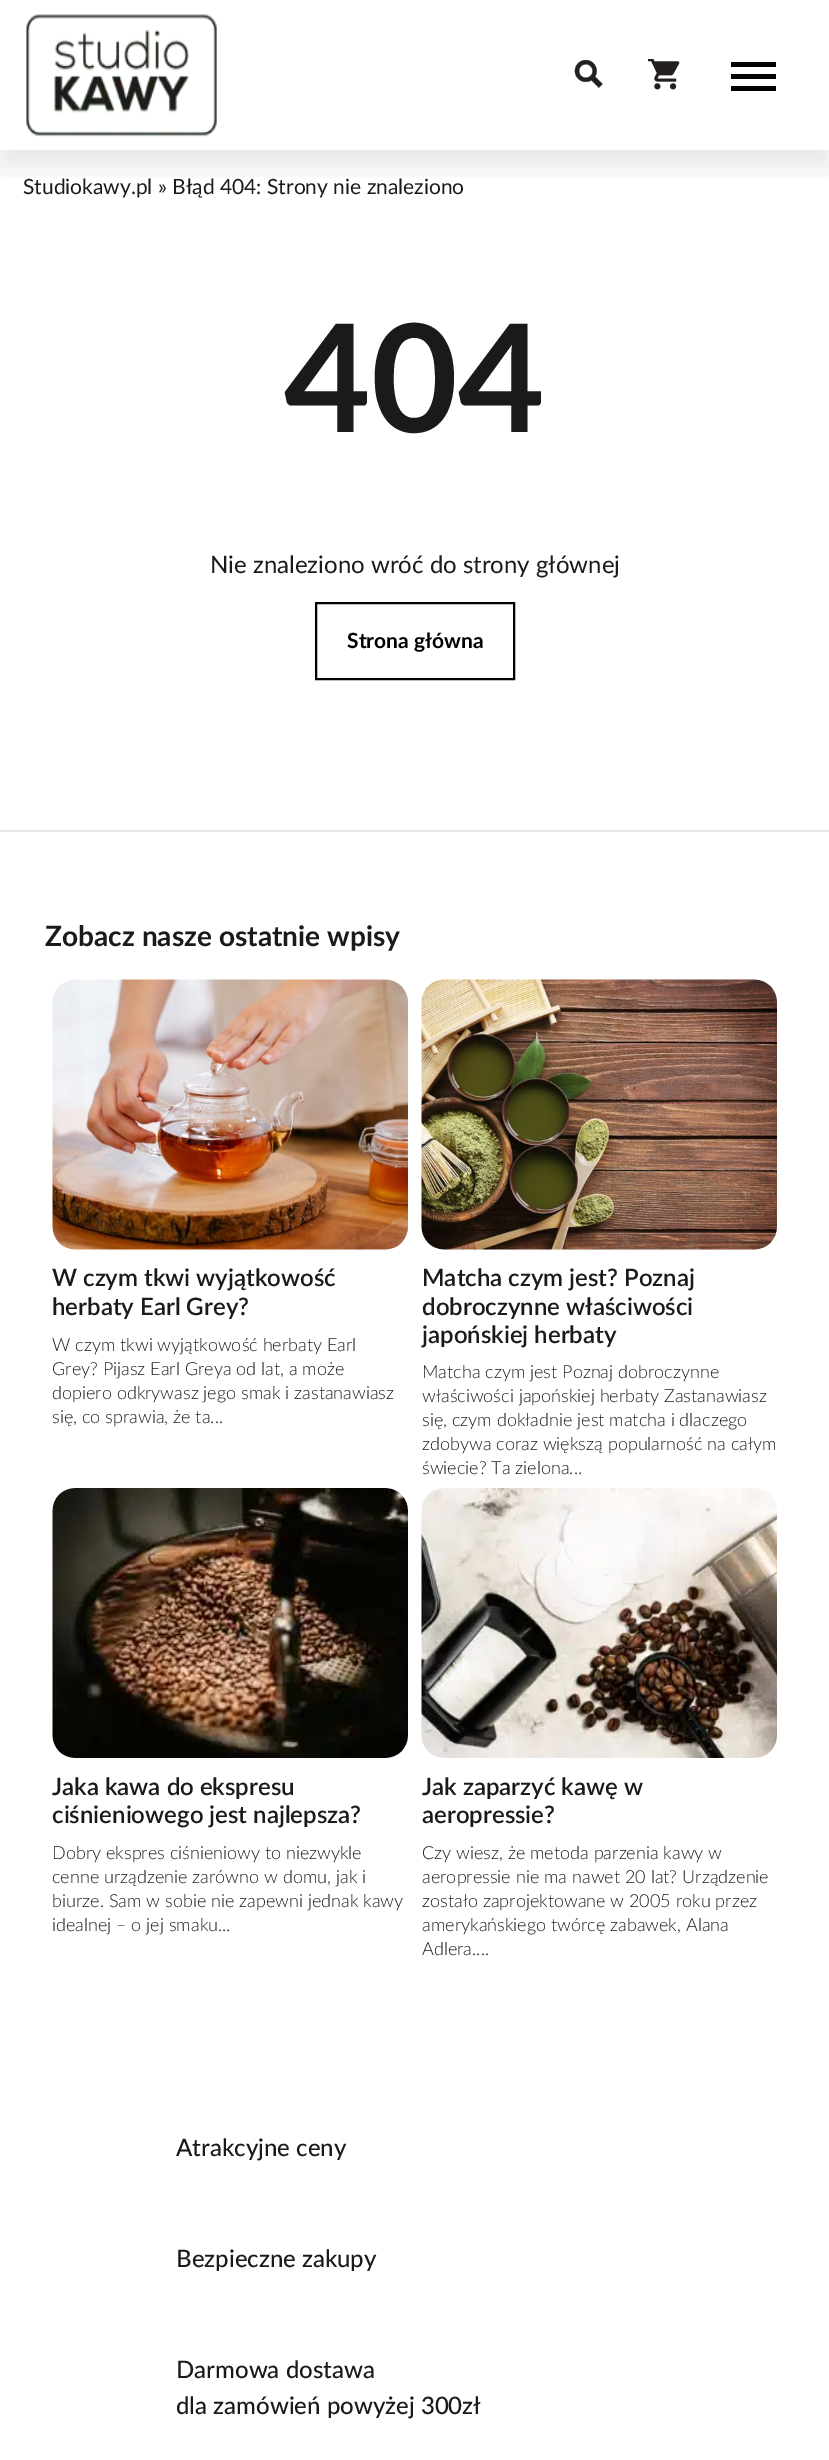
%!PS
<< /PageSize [829 2460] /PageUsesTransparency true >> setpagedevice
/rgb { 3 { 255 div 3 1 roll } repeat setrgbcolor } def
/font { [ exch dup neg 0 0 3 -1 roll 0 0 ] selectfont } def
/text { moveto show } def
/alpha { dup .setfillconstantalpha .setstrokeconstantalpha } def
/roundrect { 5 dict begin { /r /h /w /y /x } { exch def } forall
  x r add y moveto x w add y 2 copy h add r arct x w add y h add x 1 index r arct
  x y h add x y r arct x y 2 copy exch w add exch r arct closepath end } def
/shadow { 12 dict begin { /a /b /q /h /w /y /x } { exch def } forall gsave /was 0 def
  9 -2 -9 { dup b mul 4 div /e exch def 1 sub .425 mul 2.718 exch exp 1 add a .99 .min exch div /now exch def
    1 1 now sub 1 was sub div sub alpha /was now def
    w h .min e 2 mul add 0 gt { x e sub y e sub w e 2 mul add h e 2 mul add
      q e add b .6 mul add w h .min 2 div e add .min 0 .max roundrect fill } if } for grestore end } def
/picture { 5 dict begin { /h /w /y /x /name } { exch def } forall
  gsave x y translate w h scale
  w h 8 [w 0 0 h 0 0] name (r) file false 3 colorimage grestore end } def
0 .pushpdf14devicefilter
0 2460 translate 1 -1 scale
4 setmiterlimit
255 255 255 rgb
0 0 829 2460 rectfill
gsave
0 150 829 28 rectclip
0 0 0 rgb
0 15 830 150 0 15 0.1 shadow
grestore
(img_01.rgb) 26 14 191 123 picture
(img_02.rgb) 574 59 29 29 picture
(img_03.rgb) 648 59 32 31 picture
0 0 0 rgb
731 62 45 5 rectfill
731 74 45 5 rectfill
731 86 45 5 rectfill
2 setlinewidth
316 603 198 76 rectstroke
230 230 230 rgb
0 830 829 2 rectfill
(img_04.rgb) 52 979 356 271 picture
(img_05.rgb) 421 979 356 271 picture
(img_06.rgb) 52 1488 356 270 picture
(img_07.rgb) 421 1488 356 270 picture
/Lato-Regular 21 font
26 26 26 rgb
(Studiokawy.pl » Błąd 404: Strony nie znaleziono) 23 194 text
/Lato-Bold 150 font
(404) 284 432 text
/Lato-Regular 24 font
(Nie znaleziono wróć do strony głównej) 210 573 text
/Lato-Bold 21 font
0 0 0 rgb
(Strona główna) 347 648 text
/Lato-Bold 28.1 font
26 26 26 rgb
(Zobacz nasze ostatnie wpisy) 45 946 text
/Lato-SemiBold 24 font
(W czym tkwi wyjątkowość) 52 1286 text
(herbaty Earl Grey?) 52 1315 text
/Lato-Light 18 font
(W czym tkwi wyjątkowość herbaty Earl) 52 1351 text
(Grey? Pijasz Earl Greya od lat, a może) 52 1375 text
(dopiero odkrywasz jego smak i zastanawiasz) 52 1399 text
(się, co sprawia, że ta...) 52 1423 text
/Lato-SemiBold 24 font
(Matcha czym jest? Poznaj) 422 1286 text
(dobroczynne właściwości) 422 1315 text
(japońskiej herbaty) 422 1343 text
/Lato-Light 18 font
(Matcha czym jest Poznaj dobroczynne) 422 1378 text
(właściwości japońskiej herbaty Zastanawiasz) 422 1402 text
(się, czym dokładnie jest matcha i dlaczego) 422 1426 text
(zdobywa coraz większą popularność na całym) 422 1450 text
(świecie? Ta zielona...) 422 1474 text
/Lato-SemiBold 24 font
(Jaka kawa do ekspresu) 52 1795 text
(ciśnieniowego jest najlepsza?) 52 1823 text
/Lato-Light 18 font
(Dobry ekspres ciśnieniowy to niezwykle) 52 1859 text
(cenne urządzenie zarówno w domu, jak i) 52 1883 text
(biurze. Sam w sobie nie zapewni jednak kawy) 52 1907 text
(idealnej – o jej smaku...) 52 1931 text
/Lato-SemiBold 24 font
(Jak zaparzyć kawę w) 422 1795 text
(aeropressie?) 422 1823 text
/Lato-Light 18 font
(Czy wiesz, że metoda parzenia kawy w) 422 1859 text
(aeropressie nie ma nawet 20 lat? Urządzenie) 422 1883 text
(zostało zaprojektowane w 2005 roku przez) 422 1907 text
(amerykańskiego twórcę zabawek, Alana) 422 1931 text
(Adlera....) 422 1955 text
/Lato-Medium 24 font
(Atrakcyjne ceny) 176 2156 text
(Bezpieczne zakupy) 176 2267 text
(Darmowa dostawa) 176 2378 text
(dla zamówień powyżej 300zł) 176 2414 text
.poppdf14devicefilter showpage
